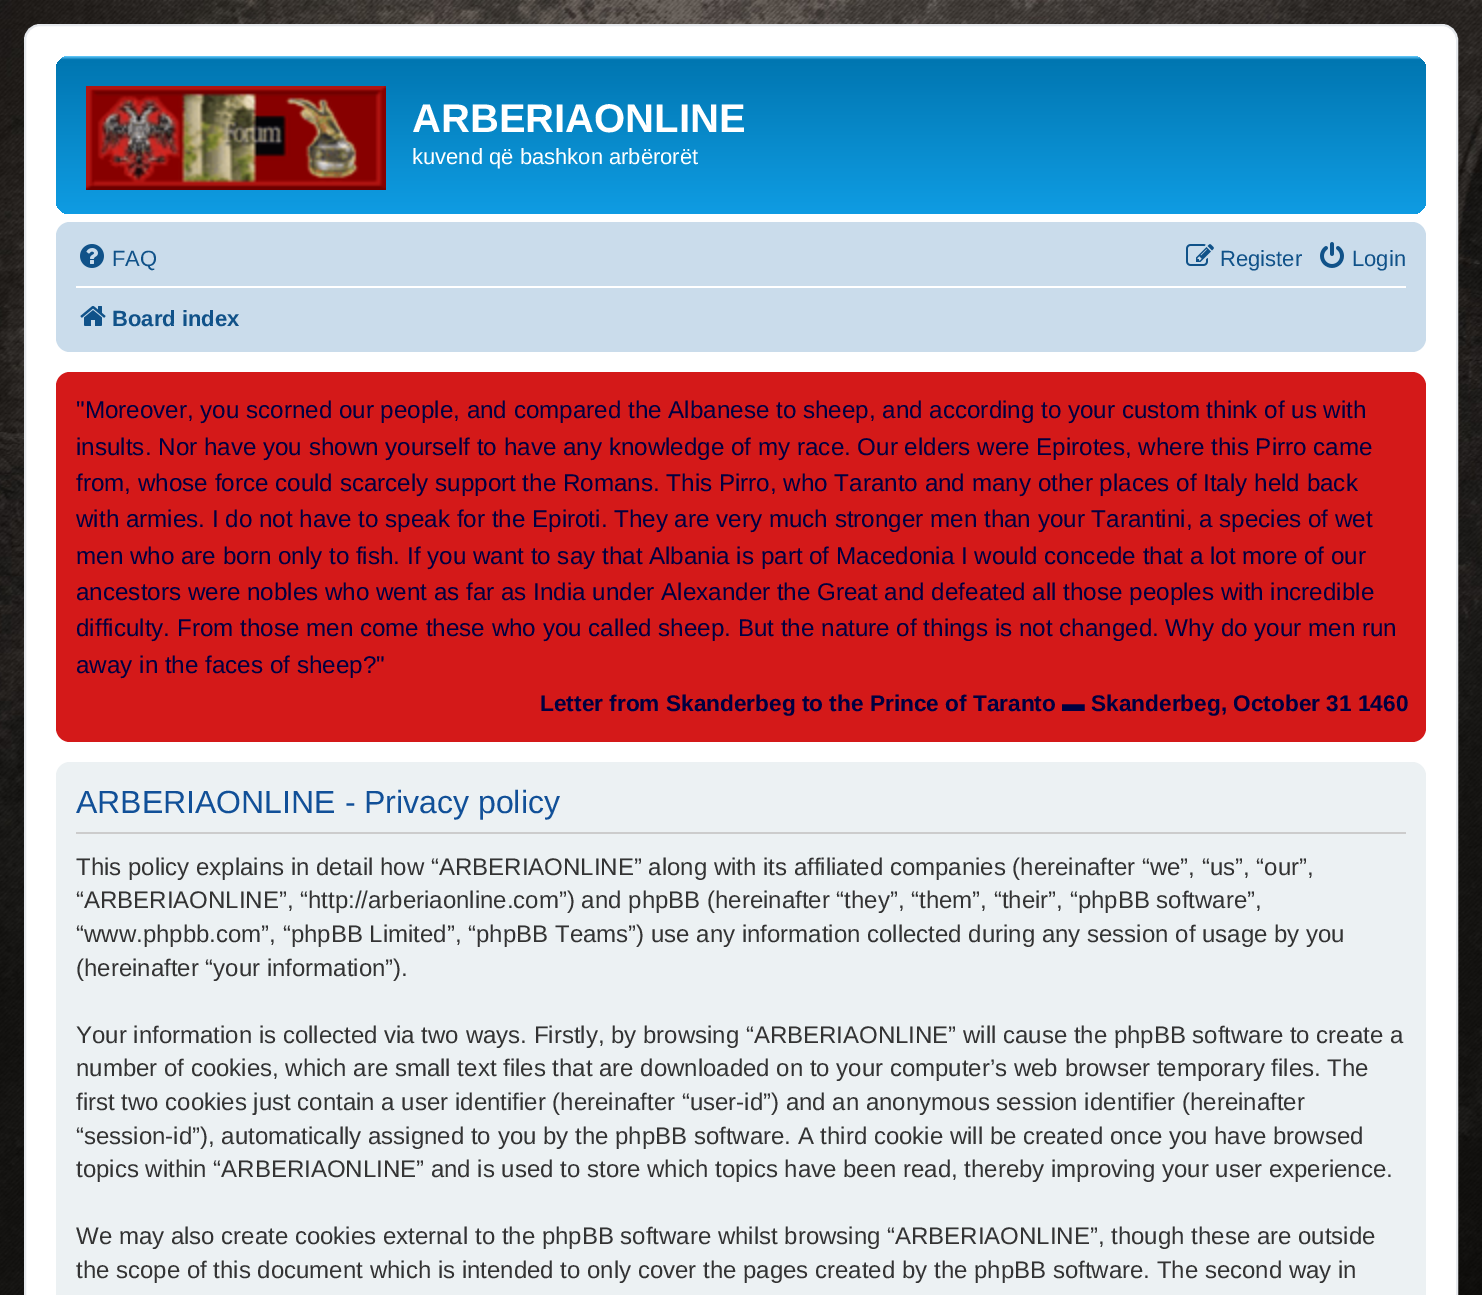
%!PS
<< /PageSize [1482 1295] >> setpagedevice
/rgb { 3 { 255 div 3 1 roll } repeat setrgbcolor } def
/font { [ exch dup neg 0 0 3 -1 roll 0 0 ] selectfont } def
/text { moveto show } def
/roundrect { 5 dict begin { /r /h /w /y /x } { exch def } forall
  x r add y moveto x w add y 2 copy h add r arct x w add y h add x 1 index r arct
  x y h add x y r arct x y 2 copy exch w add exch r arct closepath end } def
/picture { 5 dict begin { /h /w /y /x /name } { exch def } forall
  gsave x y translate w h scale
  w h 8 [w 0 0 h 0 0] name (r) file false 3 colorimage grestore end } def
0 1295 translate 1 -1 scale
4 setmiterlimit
255 255 255 rgb
0 0 1482 1295 rectfill
(img_01.rgb) 0 0 1482 1295 picture
25 25 1432 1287 15 roundrect gsave fill grestore
230 233 237 rgb
2 setlinewidth
stroke
gsave 56 56 1370 158 14 roundrect clip newpath
<< /ShadingType 2 /ColorSpace /DeviceRGB /Coords [741 56 741 240] /Extend [true true] /Function << /FunctionType 3 /Domain [0 1] /Functions [<< /FunctionType 2 /Domain [0 1] /C0 [0.416 0.808 1] /C1 [0 0.463 0.694] /N 1 >> << /FunctionType 2 /Domain [0 1] /C0 [0 0.463 0.694] /C1 [0.071 0.639 0.922] /N 1 >>] /Bounds [0.02] /Encode [0 1 0 1] >> >> shfill grestore
(img_02.rgb) 86 86 300 104 picture
202 220 235 rgb
56 222 1370 130 14 roundrect fill
(img_03.rgb) 80 244 24 24 picture
(img_04.rgb) 1186 244 28 22 picture
(img_05.rgb) 1320 242 24 26 picture
255 255 255 rgb
76 286 1330 2 rectfill
(img_06.rgb) 80 306 26 20 picture
212 25 25 rgb
56 372 1370 370 14 roundrect fill
236 241 243 rgb
56 762 1370 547 14 roundrect fill
204 204 204 rgb
76 832 1330 2 rectfill
/LiberationSans-Bold 40 font
255 255 255 rgb
(ARBERIAONLINE) 412 132 text
/LiberationSans-Regular 22 font
(kuvend që bashkon arbërorët) 412 164 text
16 82 137 rgb
(FAQ) 112 266 text
(Register) 1220 266 text
(Login) 1352 266 text
/LiberationSans-Bold 22 font
(Board index) 112 326 text
/LiberationSans-Regular 24.2 font
0 0 64 rgb
("Moreover, you scorned our people, and compared the Albanese to sheep, and according to your custom think of us with) 76 418 text
(insults. Nor have you shown yourself to have any knowledge of my race. Our elders were Epirotes, where this Pirro came) 76 455 text
(from, whose force could scarcely support the Romans. This Pirro, who Taranto and many other places of Italy held back) 76 491 text
(with armies. I do not have to speak for the Epiroti. They are very much stronger men than your Tarantini, a species of wet) 76 527 text
(men who are born only to fish. If you want to say that Albania is part of Macedonia I would concede that a lot more of our) 76 564 text
(ancestors were nobles who went as far as India under Alexander the Great and defeated all those peoples with incredible) 76 600 text
(difficulty. From those men come these who you called sheep. But the nature of things is not changed. Why do your men run) 76 636 text
(away in the faces of sheep?") 76 673 text
/LiberationSans-Bold 22.65 font
(Letter from Skanderbeg to the Prince of Taranto ▬ Skanderbeg, October 31 1460) 540 711 text
/LiberationSans-Regular 32 font
17 80 152 rgb
(ARBERIAONLINE - Privacy policy) 76 813 text
/LiberationSans-Regular 24 font
51 51 51 rgb
(This policy explains in detail how “ARBERIAONLINE” along with its affiliated companies \(hereinafter “we”, “us”, “our”,) 76 875 text
(“ARBERIAONLINE”, “http://arberiaonline.com”\) and phpBB \(hereinafter “they”, “them”, “their”, “phpBB software”,) 76 908 text
(“www.phpbb.com”, “phpBB Limited”, “phpBB Teams”\) use any information collected during any session of usage by you) 76 942 text
(\(hereinafter “your information”\).) 76 976 text
(Your information is collected via two ways. Firstly, by browsing “ARBERIAONLINE” will cause the phpBB software to create a) 76 1043 text
(number of cookies, which are small text files that are downloaded on to your computer’s web browser temporary files. The) 76 1076 text
(first two cookies just contain a user identifier \(hereinafter “user-id”\) and an anonymous session identifier \(hereinafter) 76 1110 text
(“session-id”\), automatically assigned to you by the phpBB software. A third cookie will be created once you have browsed) 76 1144 text
(topics within “ARBERIAONLINE” and is used to store which topics have been read, thereby improving your user experience.) 76 1177 text
(We may also create cookies external to the phpBB software whilst browsing “ARBERIAONLINE”, though these are outside) 76 1244 text
(the scope of this document which is intended to only cover the pages created by the phpBB software. The second way in) 76 1278 text
showpage
